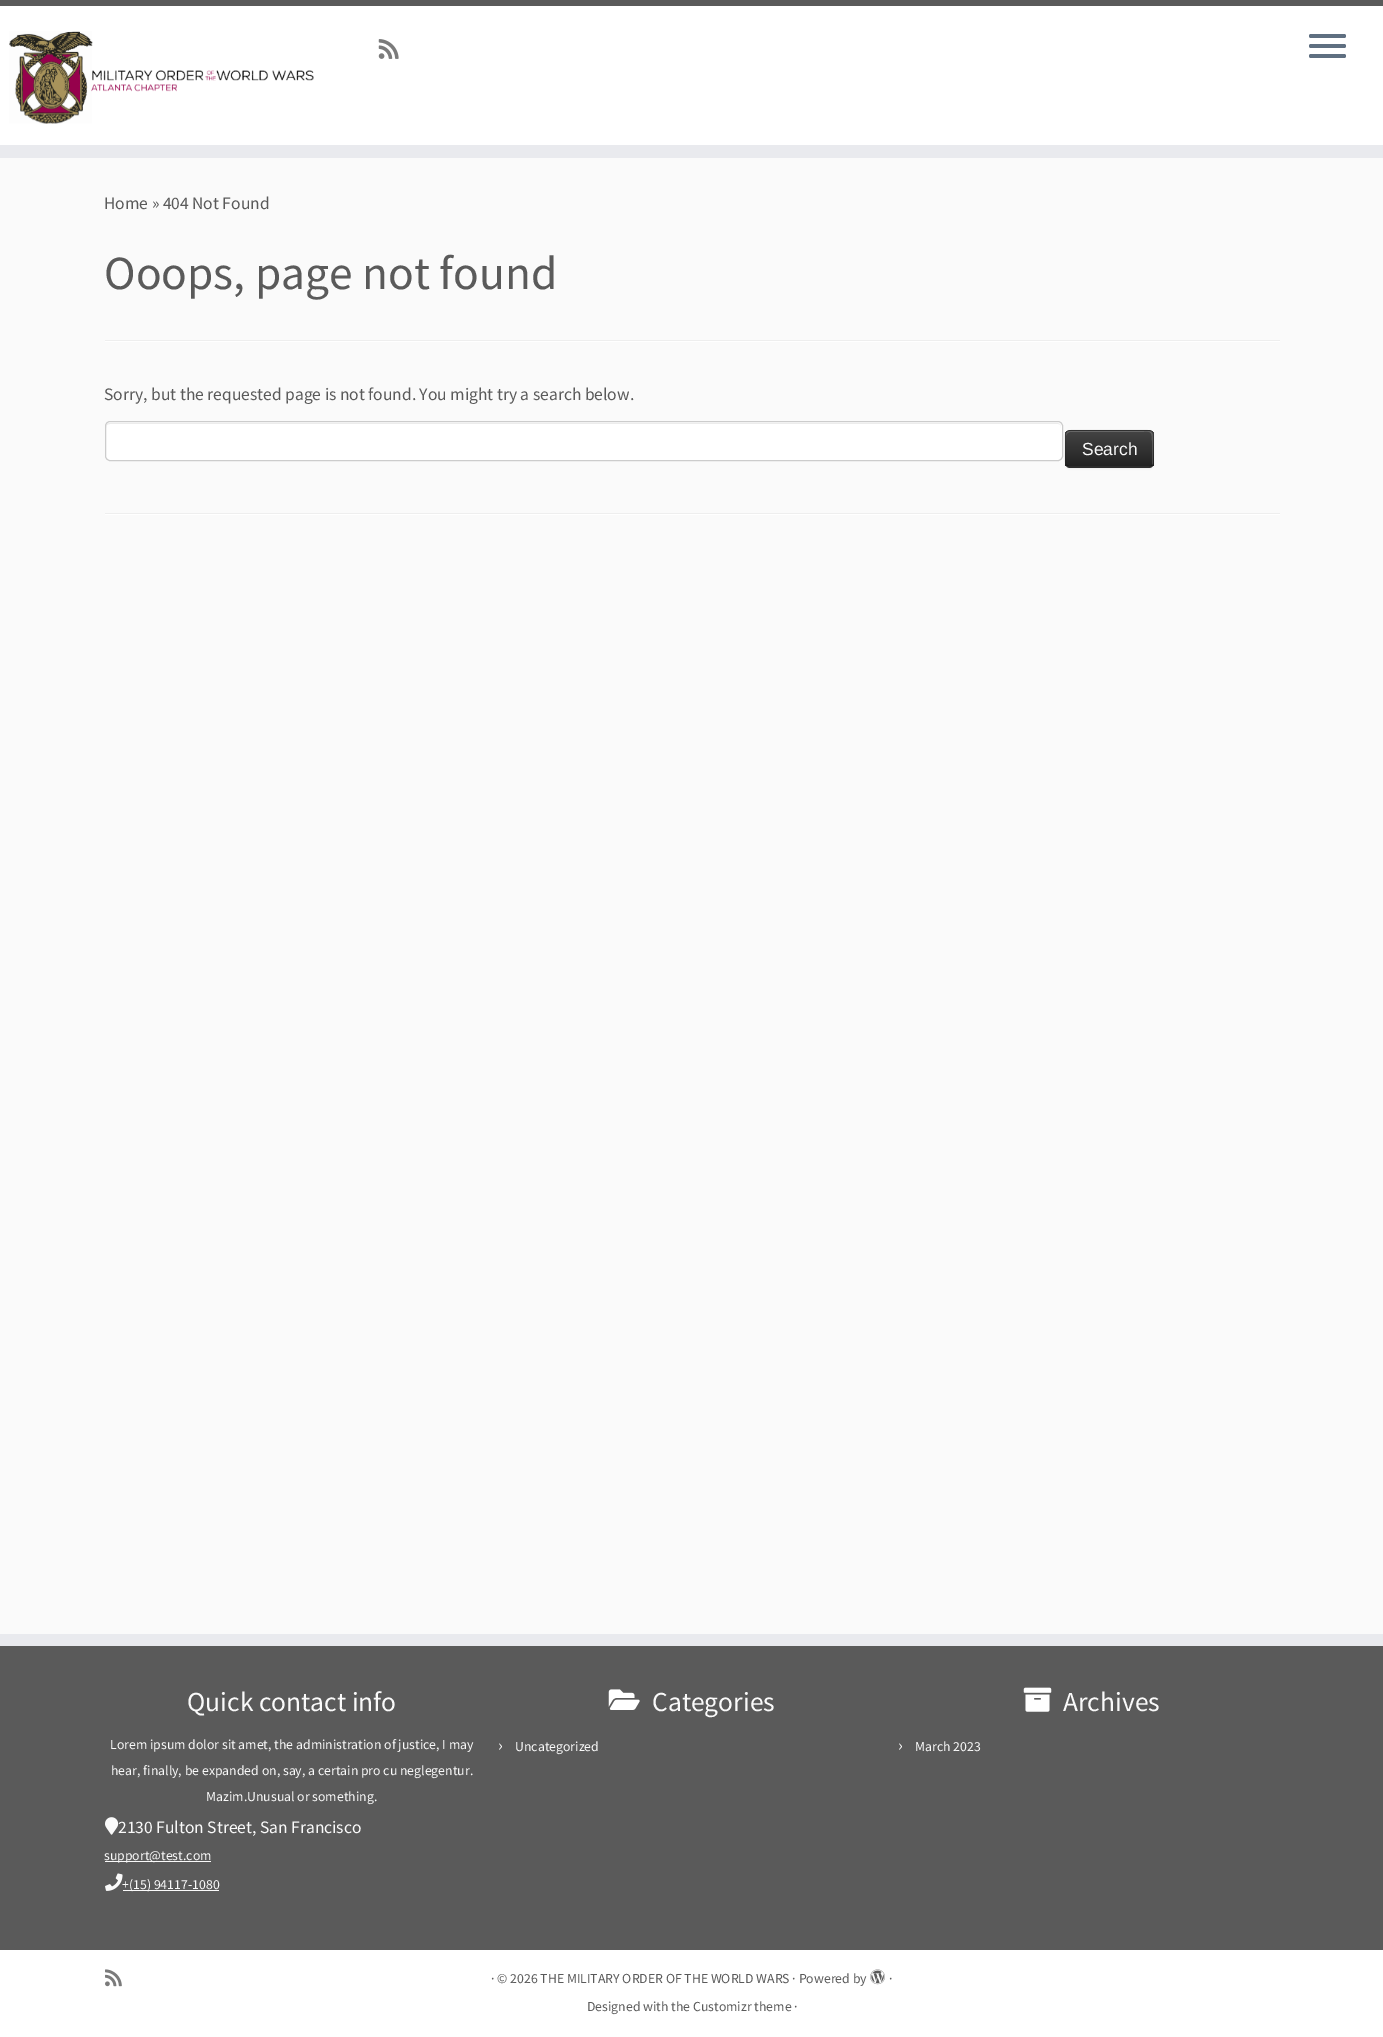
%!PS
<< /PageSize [1383 2037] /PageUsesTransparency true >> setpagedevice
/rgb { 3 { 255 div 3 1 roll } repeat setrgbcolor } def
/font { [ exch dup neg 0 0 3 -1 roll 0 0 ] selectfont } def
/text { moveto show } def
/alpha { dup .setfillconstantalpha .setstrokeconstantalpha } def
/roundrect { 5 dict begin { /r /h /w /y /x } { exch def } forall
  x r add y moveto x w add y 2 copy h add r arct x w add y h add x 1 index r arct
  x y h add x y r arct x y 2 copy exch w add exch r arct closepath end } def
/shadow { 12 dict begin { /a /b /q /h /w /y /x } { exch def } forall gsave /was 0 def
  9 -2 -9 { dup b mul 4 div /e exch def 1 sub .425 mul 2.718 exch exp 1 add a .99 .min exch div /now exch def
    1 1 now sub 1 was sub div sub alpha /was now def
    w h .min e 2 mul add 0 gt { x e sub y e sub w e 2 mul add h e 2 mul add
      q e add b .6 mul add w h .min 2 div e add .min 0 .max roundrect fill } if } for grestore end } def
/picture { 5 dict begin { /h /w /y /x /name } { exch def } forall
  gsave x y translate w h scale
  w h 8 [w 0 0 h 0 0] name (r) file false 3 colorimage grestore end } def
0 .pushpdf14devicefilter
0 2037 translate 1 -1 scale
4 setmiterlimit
250 250 250 rgb
0 0 1383 2037 rectfill
255 255 255 rgb
0 6 1383 139 rectfill
90 90 90 rgb
0 0 1383 6 rectfill
233 234 238 rgb
0 145 1383 13 rectfill
(img_01.rgb) 9 31 305 93 picture
(img_02.rgb) 378 39 21 20 picture
95 111 129 rgb
1309 34 37 4 2 roundrect fill
1309 44 37 4 2 roundrect fill
1309 54 37 4 2 roundrect fill
238 238 238 rgb
105 340 1175 1 rectfill
255 255 255 rgb
105 341 1175 1 rectfill
105 421 958 40 5 roundrect fill
236 236 236 rgb
110 424 moveto 948 0 rlineto 2 0 3 1 3 4 rcurveto 0 -3 -1 -5 -4 -5 rcurveto -947 0 rlineto -3 0 -4 2 -4 5 rcurveto 0 -3 2 -4 4 -4 rcurveto closepath fill
204 204 204 rgb
105.5 421.5 957 39 4.5 roundrect stroke
0 0 0 rgb
1065 431 89 38 5 1 0.05 shadow
54 54 54 rgb
1065 430 89 38 5 roundrect fill
gsave
1065 430 89 38 5 roundrect clip newpath
gsave 1065 431 moveto 89 0 rlineto 0 35 rlineto -89 0 rlineto closepath clip newpath
<< /ShadingType 2 /ColorSpace /DeviceRGB /Coords [1109 431 1109 466] /Extend [true true] /Function << /FunctionType 2 /Domain [0 1] /C0 [0.267 0.267 0.267] /C1 [0.133 0.133 0.133] /N 1 >> >> shfill grestore
grestore
0.2 alpha
255 255 255 rgb
1070 432 moveto 66 0 rlineto 14 0 16 -3 16 9 rcurveto 0 24 rlineto 1 -1 1 -2 1 -3 rcurveto 0 -27 rlineto 0 -2 -2 -4 -4 -4 rcurveto -79 0 rlineto -2 0 -4 2 -4 4 rcurveto 0 1 rlineto 0 -2 2 -4 4 -4 rcurveto closepath fill
0.25 alpha
0 0 0 rgb
1.2 setlinewidth
1152 465.5 moveto -3 1.5 rlineto -79.5 0 rlineto -2.5 -1.5 rlineto stroke
0.1 alpha
1067 465.5 moveto -2 -2 -1.5 -5 -1.5 -7.5 rcurveto 0 -9 rlineto 0 -20.5 -3 -18.5 17.5 -18.5 rcurveto 52.5 0 rlineto 20.5 0 17.5 -2 17.5 18.5 rcurveto 0 9 rlineto 0 2.5 1 5.5 -1 7.5 rcurveto stroke
1 alpha
238 238 238 rgb
105 513 1175 1 rectfill
255 255 255 rgb
105 514 1175 1 rectfill
90 90 90 rgb
0 1646 1383 304 rectfill
233 234 238 rgb
0 1634 1383 12 rectfill
(img_03.rgb) 105 1817 14 18 picture
250 250 250 rgb
105 1861 106 1 rectfill
(img_04.rgb) 105 1873 18 18 picture
123 1890 96 1 rectfill
(img_05.rgb) 608 1689 32 21 picture
(img_06.rgb) 1023 1687 29 25 picture
255 255 255 rgb
0 1950 1383 87 rectfill
(img_07.rgb) 105 1969 17 18 picture
(img_08.rgb) 870 1969 15 16 picture
/SourceSansPro-Regular 17.5 font
90 90 90 rgb
(Home » 404 Not Found) 104 209 text
/SourceSansPro-Regular 47.5 font
(Ooops, page not found) 104 289 text
/SourceSansPro-Regular 17.5 font
(Sorry, but the requested page is not found. You might try a search below.) 104 400 text
/LiberationSans-Regular 17.5 font
250 250 250 rgb
(Search) 1082 455 text
/SourceSansPro-Regular 27.5 font
(Quick contact info) 187 1711 text
/SourceSansPro-Regular 13.75 font
(Lorem ipsum dolor sit amet, the administration of justice, I may) 110 1749 text
(hear, finally, be expanded on, say, a certain pro cu neglegentur.) 111 1775 text
(Mazim.Unusual or something.) 206 1801 text
/SourceSansPro-Regular 17.5 font
(2130 Fulton Street, San Francisco) 118 1833 text
/SourceSansPro-Regular 13.75 font
(support@test.com) 104 1860 text
(+\(15\) 94117-1080) 122 1889 text
/SourceSansPro-Regular 27.5 font
(Categories) 652 1711 text
/SourceSansPro-Regular 17.5 font
(›) 498 1751 text
/SourceSansPro-Regular 13.75 font
(Uncategorized) 515 1751 text
/SourceSansPro-Regular 27.5 font
(Archives) 1063 1711 text
/SourceSansPro-Regular 17.5 font
(›) 898 1751 text
/SourceSansPro-Regular 13.75 font
(March 2023) 915 1751 text
90 90 90 rgb
(· © 2026 THE MILITARY ORDER OF THE WORLD WARS · Powered by) 491 1983 text
(·) 889 1983 text
(Designed with the Customizr theme ·) 587 2011 text
.poppdf14devicefilter showpage
